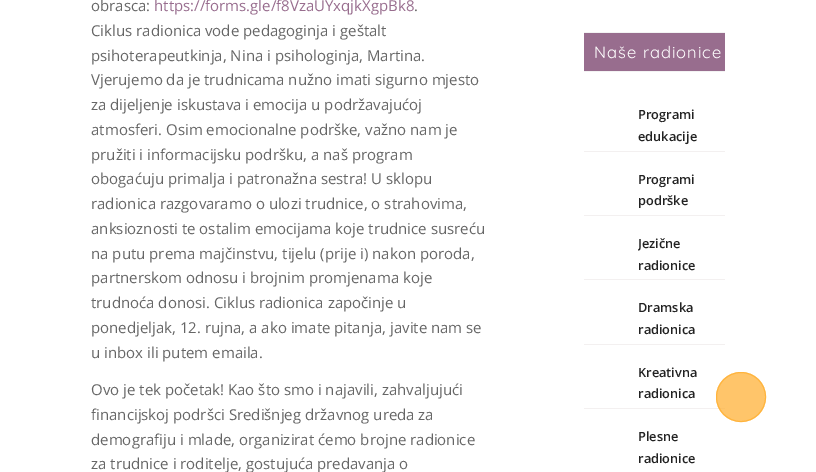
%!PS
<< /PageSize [816 472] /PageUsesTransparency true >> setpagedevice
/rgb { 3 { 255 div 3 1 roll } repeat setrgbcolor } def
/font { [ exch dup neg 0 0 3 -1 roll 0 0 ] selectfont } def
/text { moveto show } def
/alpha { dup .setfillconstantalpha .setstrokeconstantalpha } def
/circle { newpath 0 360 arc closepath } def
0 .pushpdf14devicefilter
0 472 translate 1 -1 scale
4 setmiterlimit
255 255 255 rgb
0 0 816 472 rectfill
152 109 142 rgb
584 33 141 38 rectfill
243 243 243 rgb
584 32 141 1 rectfill
584 71 141 1 rectfill
243 240 240 rgb
584 151 141 1 rectfill
584 215 141 1 rectfill
584 279 141 1 rectfill
584 344 141 1 rectfill
584 408 141 1 rectfill
0.7 alpha
255 173 43 rgb
741 397 25 circle fill
741 397 24.5 circle stroke
/OpenSans-Regular 15 font
1 alpha
102 102 102 rgb
(obrasca:) 91 11 text
152 109 142 rgb
(https://forms.gle/f8VzaUYxqjkXgpBk8) 154 11 text
102 102 102 rgb
(.) 414 11 text
(Ciklus radionica vode pedagoginja i geštalt) 91 36 text
(psihoterapeutkinja, Nina i psihologinja, Martina.) 91 61 text
(Vjerujemo da je trudnicama nužno imati sigurno mjesto) 91 85 text
(za dijeljenje iskustava i emocija u podržavajućoj) 91 110 text
(atmosferi. Osim emocionalne podrške, važno nam je) 91 135 text
(pružiti i informacijsku podršku, a naš program) 91 160 text
(obogaćuju primalja i patronažna sestra! U sklopu) 91 184 text
(radionica razgovaramo o ulozi trudnice, o strahovima,) 91 209 text
(anksioznosti te ostalim emocijama koje trudnice susreću) 91 234 text
(na putu prema majčinstvu, tijelu \(prije i\) nakon poroda,) 91 259 text
(partnerskom odnosu i brojnim promjenama koje) 91 283 text
(trudnoća donosi. Ciklus radionica započinje u) 91 308 text
(ponedjeljak, 12. rujna, a ako imate pitanja, javite nam se) 91 333 text
(u inbox ili putem emaila.) 91 358 text
(Ovo je tek početak! Kao što smo i najavili, zahvaljujući) 91 395 text
(financijskoj podršci Središnjeg državnog ureda za) 91 420 text
(demografiju i mlade, organizirat ćemo brojne radionice) 91 445 text
(za trudnice i roditelje, gostujuća predavanja o) 91 469 text
/Quicksand-Light 16.5 font
255 255 255 rgb
594 58 moveto 1 0 (Naše radionice) ashow
/OpenSans-SemiBold 12.75 font
34 34 34 rgb
(Programi) 638 119 text
(edukacije) 638 141 text
(Programi) 638 184 text
(podrške) 638 205 text
gsave
638 233 87 43 rectclip
(Jezične) 638 248 text
grestore
(radionice) 638 270 text
(Dramska) 638 312 text
(radionica) 638 334 text
(Kreativna) 638 377 text
(radionica) 638 398 text
(Plesne) 638 441 text
(radionice) 638 463 text
.poppdf14devicefilter showpage
